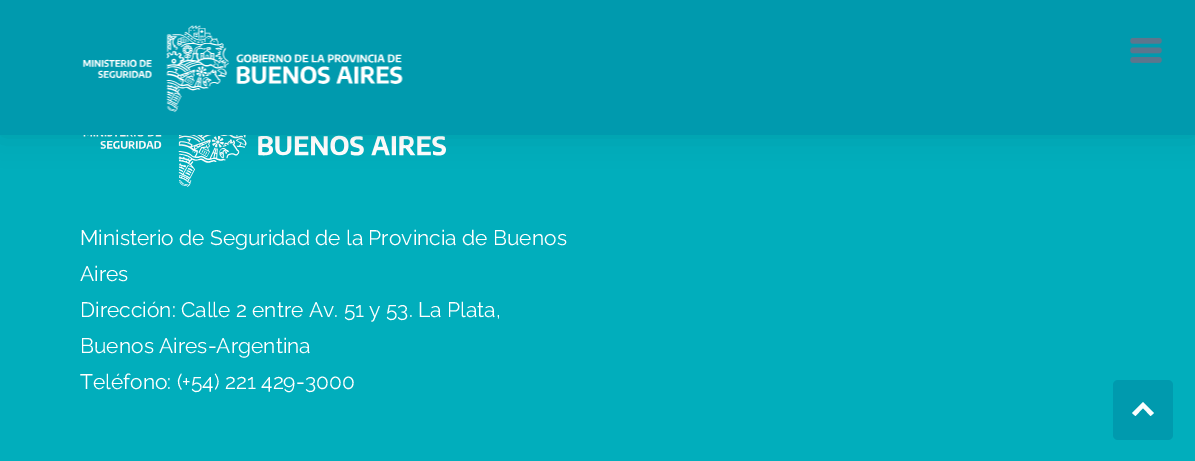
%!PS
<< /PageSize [1195 461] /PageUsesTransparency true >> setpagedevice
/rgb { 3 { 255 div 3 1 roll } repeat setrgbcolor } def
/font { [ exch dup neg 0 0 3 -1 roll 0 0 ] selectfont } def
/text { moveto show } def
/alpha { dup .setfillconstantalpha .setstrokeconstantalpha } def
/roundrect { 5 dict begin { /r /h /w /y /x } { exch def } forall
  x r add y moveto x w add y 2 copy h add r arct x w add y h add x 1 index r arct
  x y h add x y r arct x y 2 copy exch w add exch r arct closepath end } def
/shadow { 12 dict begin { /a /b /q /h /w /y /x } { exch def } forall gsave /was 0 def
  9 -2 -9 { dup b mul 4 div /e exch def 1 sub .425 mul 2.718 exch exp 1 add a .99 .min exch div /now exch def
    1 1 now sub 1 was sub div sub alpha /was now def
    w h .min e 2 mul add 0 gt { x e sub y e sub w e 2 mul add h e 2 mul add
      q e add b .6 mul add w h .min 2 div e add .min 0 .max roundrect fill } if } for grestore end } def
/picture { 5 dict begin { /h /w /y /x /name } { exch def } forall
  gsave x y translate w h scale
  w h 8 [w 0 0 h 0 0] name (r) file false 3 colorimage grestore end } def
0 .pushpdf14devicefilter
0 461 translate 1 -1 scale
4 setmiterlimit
1 174 188 rgb
0 0 1195 461 rectfill
(img_03.rgb) 83 135 363 52 picture
0 0 0 rgb
0 0 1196 135 0 15 0.1 shadow
0 154 174 rgb
0 0 1195 135 rectfill
(img_01.rgb) 82 25 321 88 picture
(img_02.rgb) 1130 37 32 26 picture
1113 380 60 60 5 roundrect fill
250 254 254 rgb
1135.5 416 moveto 7.5 -8 rlineto 7.5 8 rlineto 3.5 -3 rlineto -11 -11 rlineto -11 11 rlineto closepath fill
/Raleway-Regular 21 font
255 255 255 rgb
(Ministerio de Seguridad de la Provincia de Buenos) 80 245 text
(Aires) 80 281 text
(Dirección: Calle 2 entre Av. 51 y 53. La Plata,) 80 317 text
(Buenos Aires-Argentina) 80 353 text
(Teléfono: \(+54\) 221 429-3000) 80 389 text
.poppdf14devicefilter showpage
